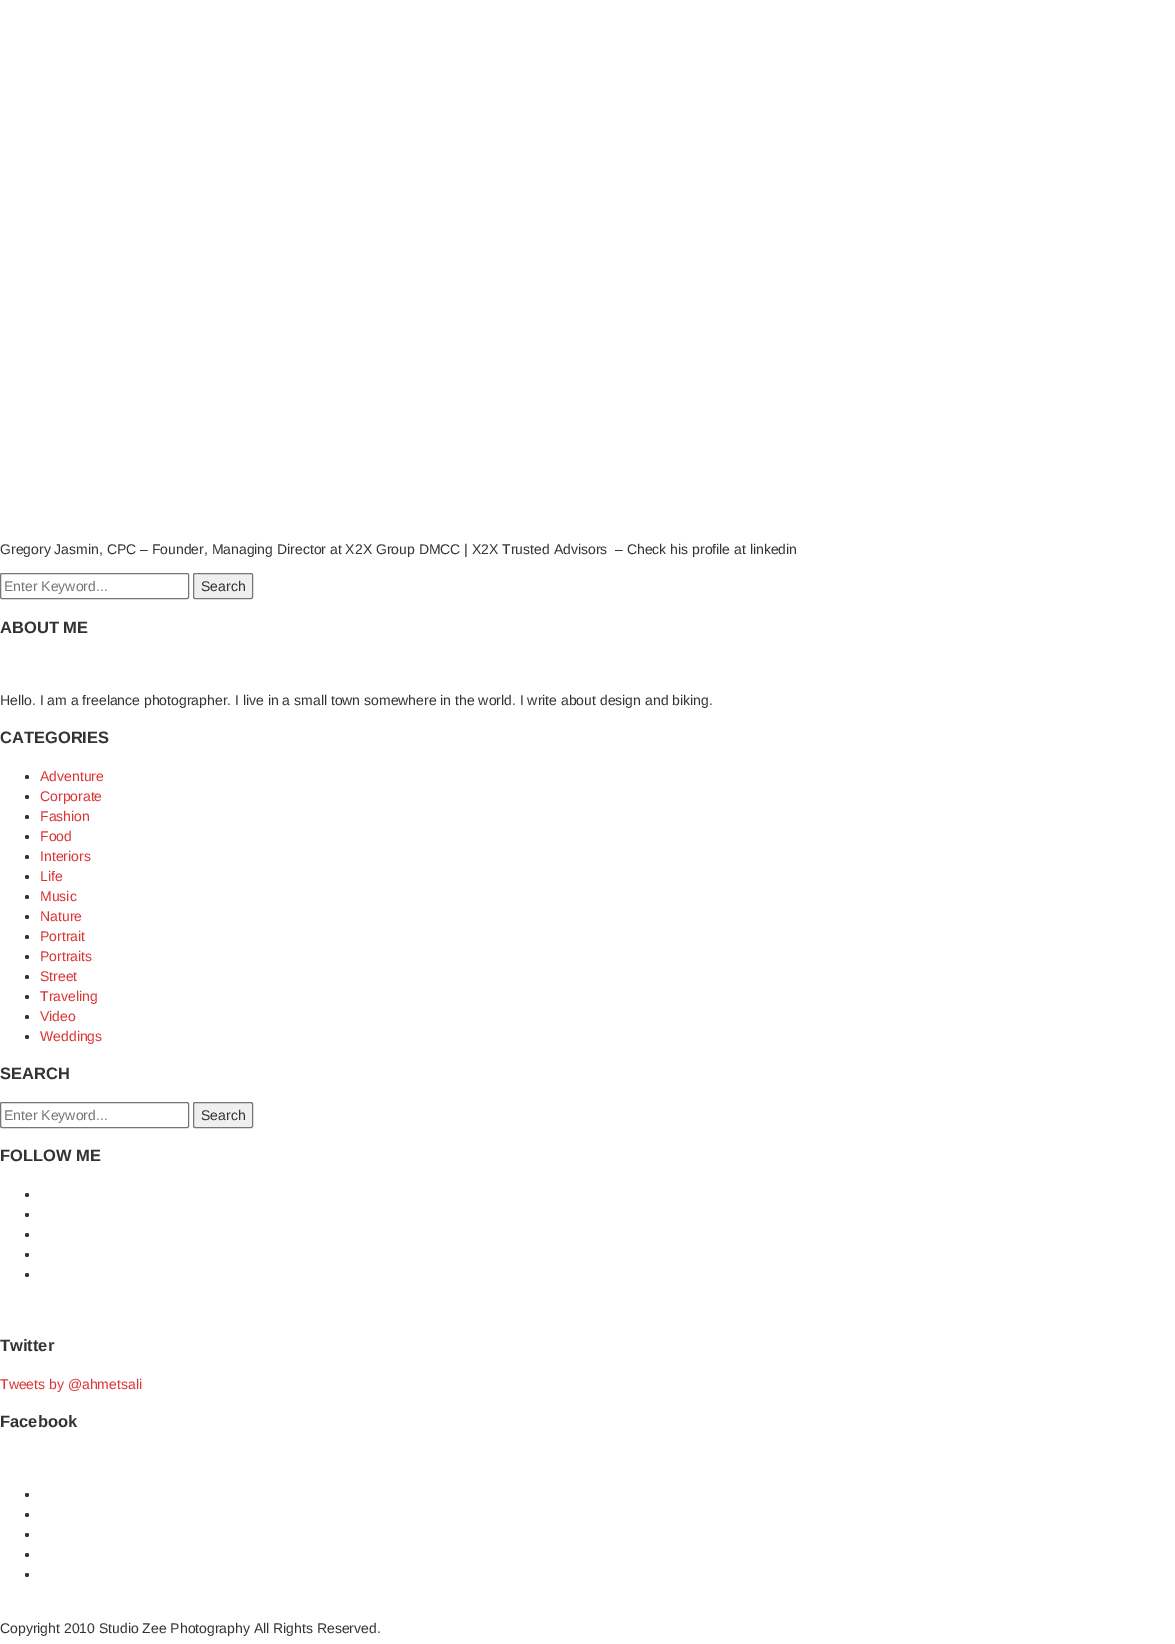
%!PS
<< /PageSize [1175 1644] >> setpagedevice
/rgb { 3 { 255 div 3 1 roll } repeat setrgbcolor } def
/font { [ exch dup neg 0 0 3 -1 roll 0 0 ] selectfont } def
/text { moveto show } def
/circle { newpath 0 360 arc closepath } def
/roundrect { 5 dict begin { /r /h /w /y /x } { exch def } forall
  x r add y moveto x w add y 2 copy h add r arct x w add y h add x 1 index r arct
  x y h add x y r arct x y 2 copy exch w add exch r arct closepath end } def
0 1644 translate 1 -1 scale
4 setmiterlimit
255 255 255 rgb
0 0 1175 1644 rectfill
118 118 118 rgb
0.5 573.5 188 25 1.5 roundrect stroke
239 239 239 rgb
193.5 573.5 59 25 1.5 roundrect gsave fill grestore
118 118 118 rgb
stroke
51 51 51 rgb
27 777 2 circle fill
27 797 2 circle fill
27 817 2 circle fill
27 837 2 circle fill
27 857 2 circle fill
27 877 2 circle fill
27 897 2 circle fill
27 917 2 circle fill
27 937 2 circle fill
27 957 2 circle fill
27 977 2 circle fill
27 997 2 circle fill
27 1017 2 circle fill
27 1037 2 circle fill
118 118 118 rgb
0.5 1102.5 188 25 1.5 roundrect stroke
239 239 239 rgb
193.5 1102.5 59 25 1.5 roundrect gsave fill grestore
118 118 118 rgb
stroke
51 51 51 rgb
27 1195 2 circle fill
27 1215 2 circle fill
27 1235 2 circle fill
27 1255 2 circle fill
27 1275 2 circle fill
27 1495 2 circle fill
27 1515 2 circle fill
27 1535 2 circle fill
27 1555 2 circle fill
27 1575 2 circle fill
/LiberationSans-Regular 14 font
(Gregory Jasmin, CPC – Founder, Managing Director at X2X Group DMCC | X2X Trusted Advisors  – Check his profile at linkedin) 0 554 text
117 117 117 rgb
(Enter Keyword...) 4 591 text
51 51 51 rgb
(Search) 201 591 text
/LiberationSans-Bold 16.5 font
(ABOUT ME) 0 633 text
/LiberationSans-Regular 14 font
(Hello. I am a freelance photographer. I live in a small town somewhere in the world. I write about design and biking.) 0 705 text
/LiberationSans-Bold 16.5 font
(CATEGORIES) 0 743 text
/LiberationSans-Regular 14 font
221 51 51 rgb
(Adventure) 40 781 text
(Corporate) 40 801 text
(Fashion) 40 821 text
(Food) 40 841 text
(Interiors) 40 861 text
(Life) 40 881 text
(Music) 40 901 text
(Nature) 40 921 text
(Portrait) 40 941 text
(Portraits) 40 961 text
(Street) 40 981 text
(Traveling) 40 1001 text
(Video) 40 1021 text
(Weddings) 40 1041 text
/LiberationSans-Bold 16.5 font
51 51 51 rgb
(SEARCH) 0 1079 text
/LiberationSans-Regular 14 font
117 117 117 rgb
(Enter Keyword...) 4 1120 text
51 51 51 rgb
(Search) 201 1120 text
/LiberationSans-Bold 16.5 font
(FOLLOW ME) 0 1161 text
(Twitter) 0 1351 text
/LiberationSans-Regular 14 font
221 51 51 rgb
(Tweets by @ahmetsali) 0 1389 text
/LiberationSans-Bold 16.5 font
51 51 51 rgb
(Facebook) 0 1427 text
/LiberationSans-Regular 14 font
(Copyright 2010 Studio Zee Photography All Rights Reserved.) 0 1633 text
showpage
